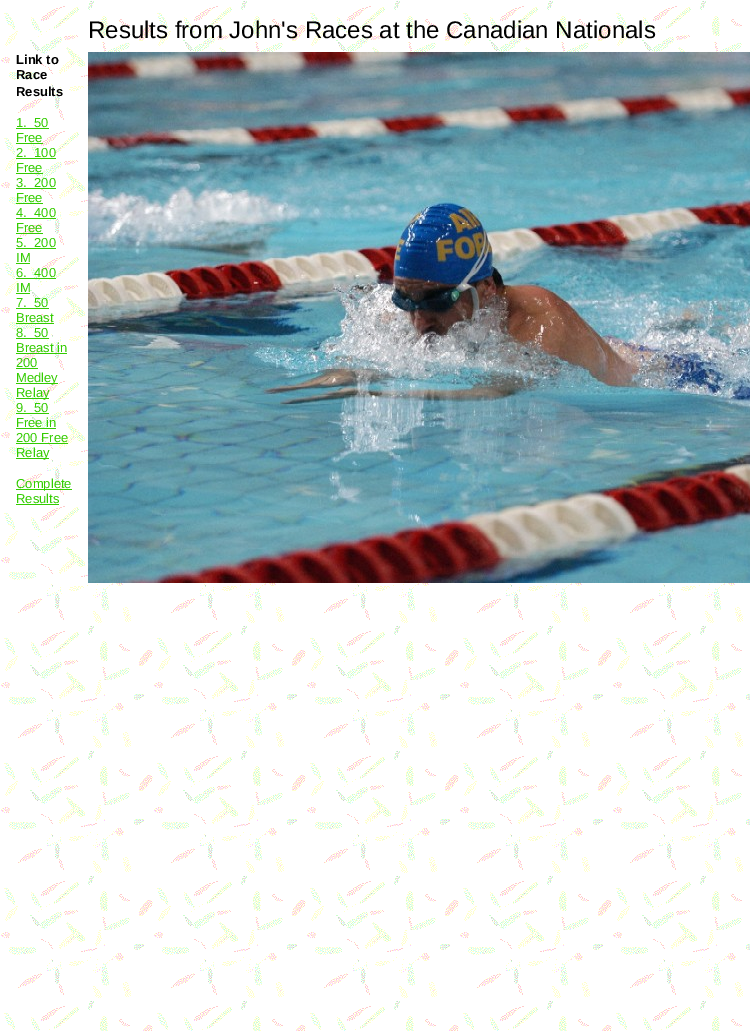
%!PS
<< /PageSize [750 1031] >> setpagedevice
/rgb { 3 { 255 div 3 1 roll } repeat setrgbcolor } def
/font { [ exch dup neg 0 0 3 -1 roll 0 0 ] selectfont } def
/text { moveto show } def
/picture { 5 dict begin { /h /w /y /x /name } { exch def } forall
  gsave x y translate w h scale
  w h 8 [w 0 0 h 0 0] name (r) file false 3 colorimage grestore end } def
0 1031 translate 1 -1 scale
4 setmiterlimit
255 255 255 rgb
0 0 750 1031 rectfill
(img_01.rgb) 1 1 749 1030 picture
51 204 0 rgb
16 128 33 1 rectfill
16 143 27 1 rectfill
16 158 40 1 rectfill
16 173 27 1 rectfill
16 188 40 1 rectfill
16 203 27 1 rectfill
16 218 40 1 rectfill
16 233 27 1 rectfill
16 248 40 1 rectfill
16 263 14 1 rectfill
16 278 40 1 rectfill
16 293 14 1 rectfill
16 308 33 1 rectfill
16 323 38 1 rectfill
16 338 33 1 rectfill
16 353 51 1 rectfill
16 368 22 1 rectfill
16 383 42 1 rectfill
16 398 33 1 rectfill
16 413 33 1 rectfill
16 428 40 1 rectfill
16 443 52 1 rectfill
16 458 33 1 rectfill
16 489 56 1 rectfill
16 504 43 1 rectfill
(img_02.rgb) 88 52 662 531 picture
/LiberationSans-Regular 24 font
0 0 0 rgb
(Results from John's Races at the Canadian Nationals) 88 38 text
/LiberationSans-Bold 13 font
(Link to) 16 64 text
(Race) 16 79 text
(Results) 16 96 text
/LiberationSans-Regular 13 font
51 204 0 rgb
(1.  50) 16 127 text
(Free) 16 142 text
(2.  100) 16 157 text
(Free) 16 172 text
(3.  200) 16 187 text
(Free) 16 202 text
(4.  400) 16 217 text
(Free) 16 232 text
(5.  200) 16 247 text
(IM) 16 262 text
(6.  400) 16 277 text
(IM) 16 292 text
(7.  50) 16 307 text
(Breast) 16 322 text
(8.  50) 16 337 text
(Breast in) 16 352 text
(200) 16 367 text
(Medley) 16 382 text
(Relay) 16 397 text
(9.  50) 16 412 text
(Free in) 16 427 text
(200 Free) 16 442 text
(Relay) 16 457 text
(Complete) 16 488 text
(Results) 16 503 text
showpage
